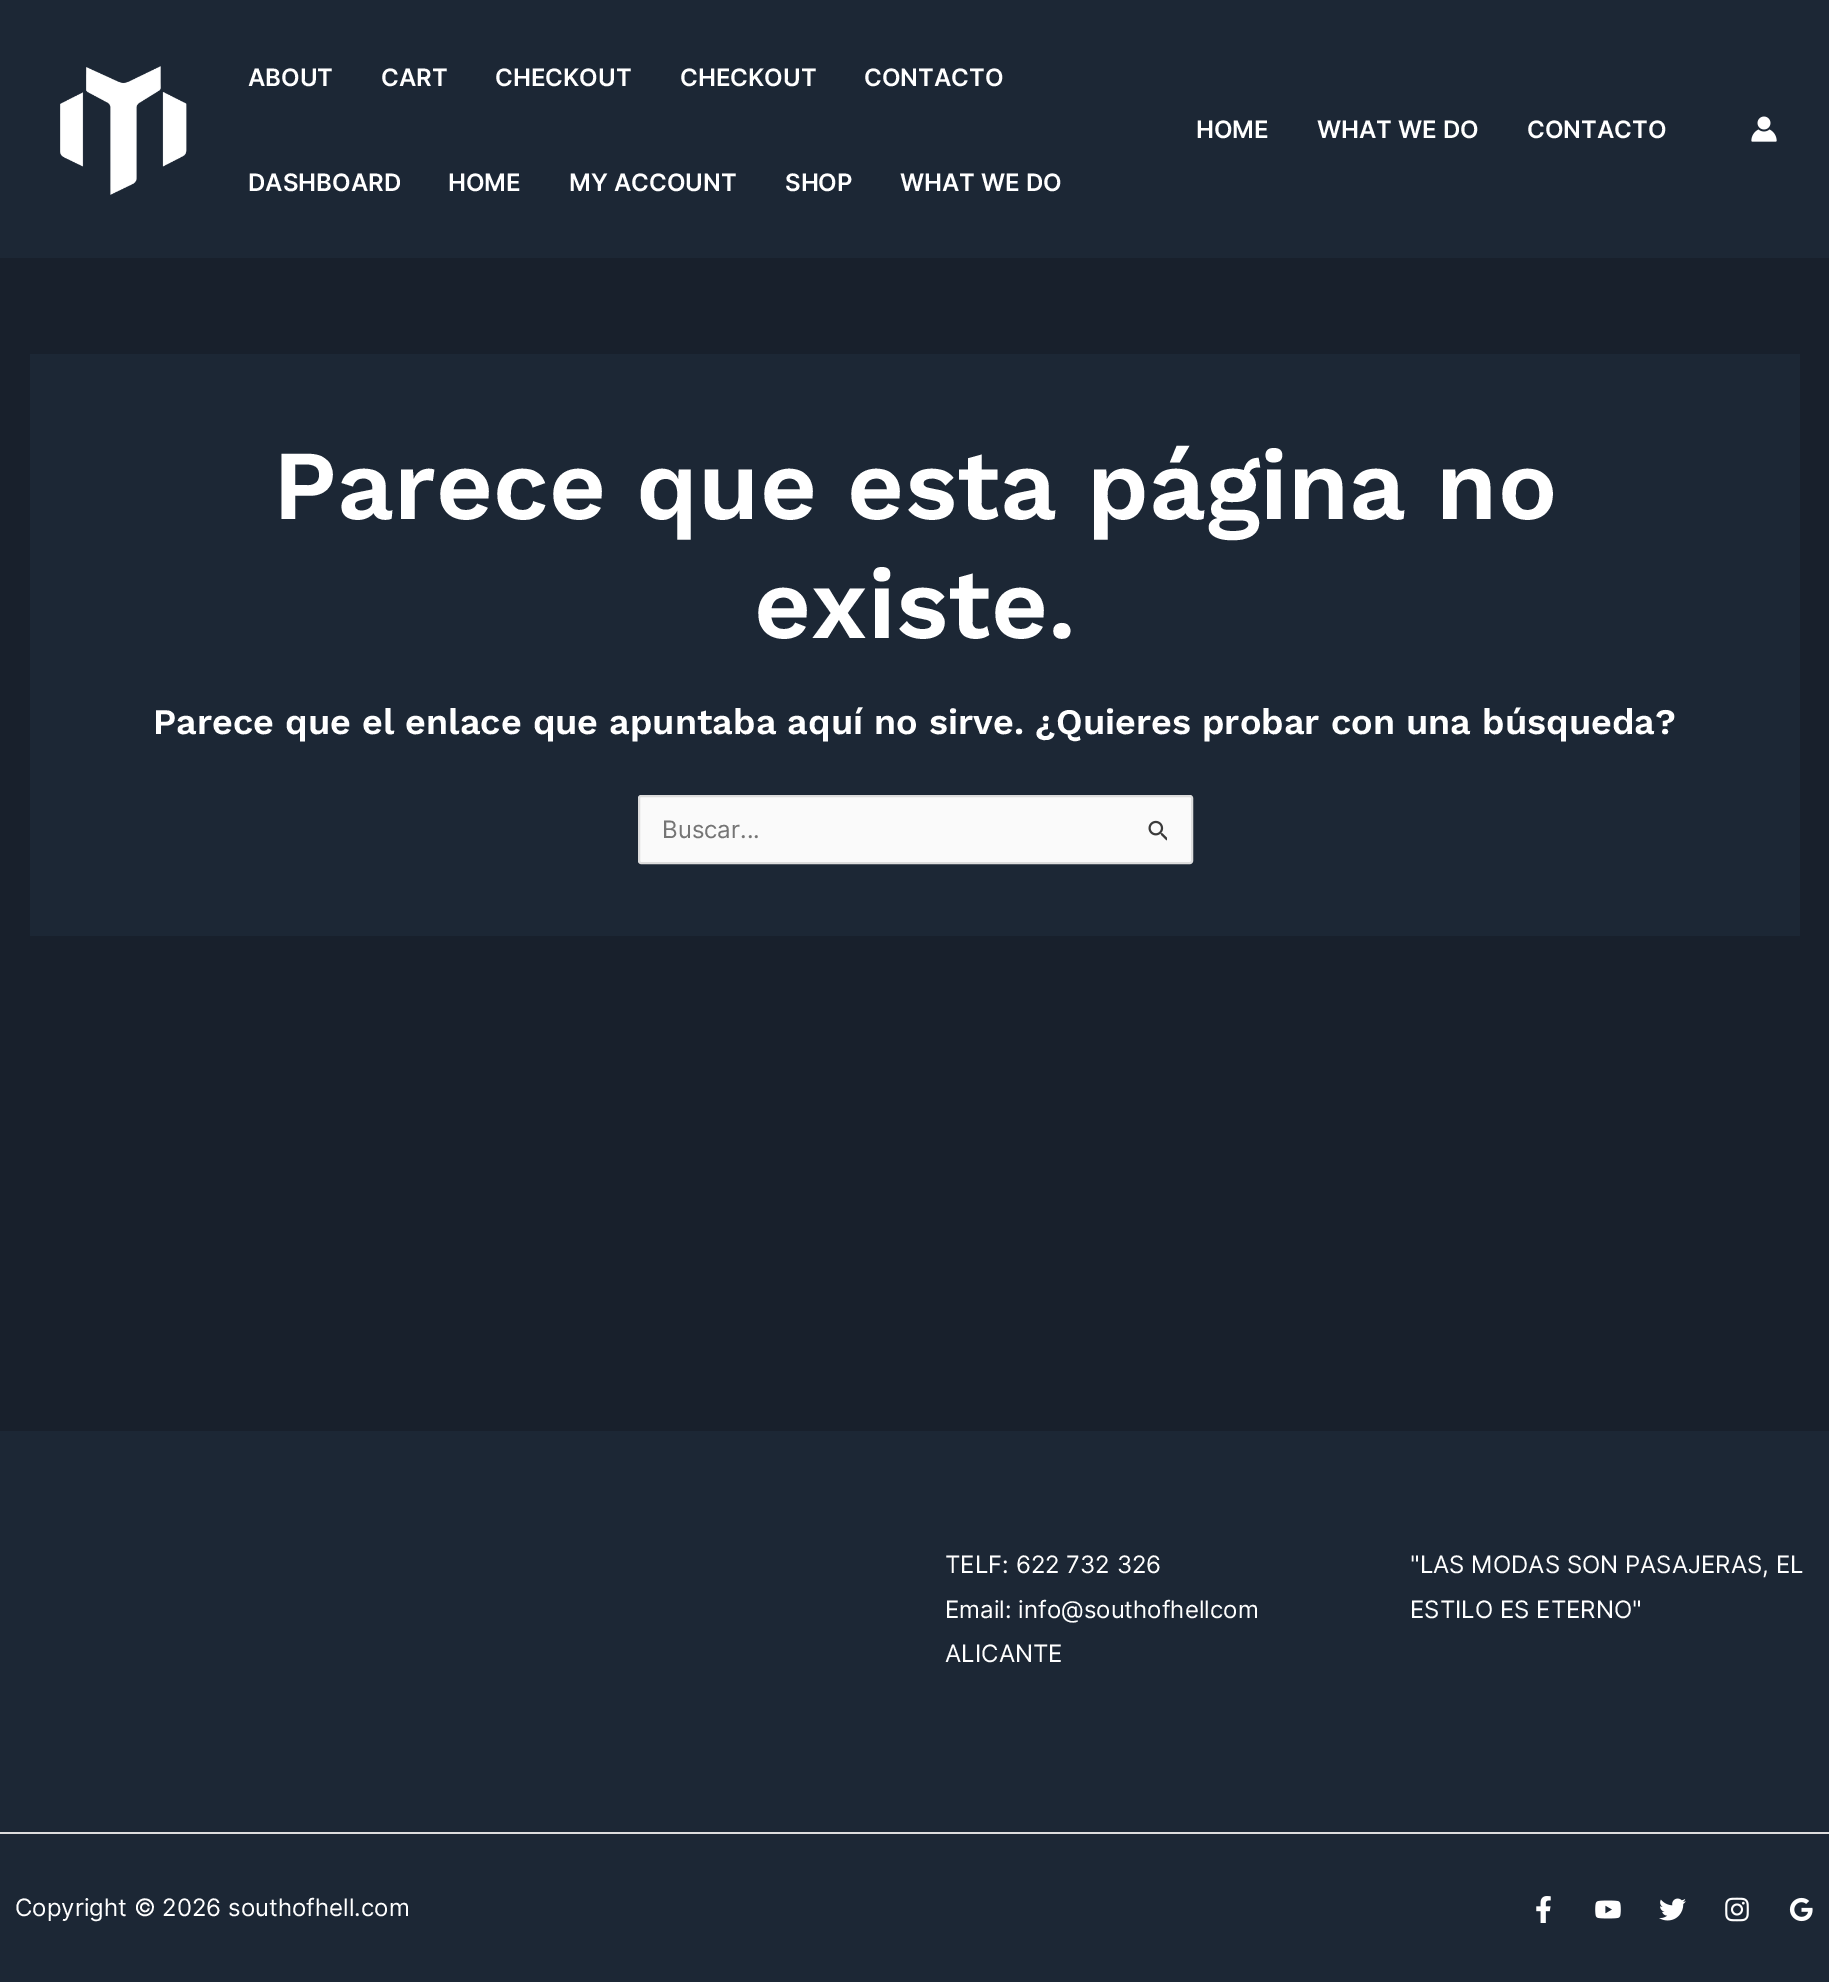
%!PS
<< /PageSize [1829 1982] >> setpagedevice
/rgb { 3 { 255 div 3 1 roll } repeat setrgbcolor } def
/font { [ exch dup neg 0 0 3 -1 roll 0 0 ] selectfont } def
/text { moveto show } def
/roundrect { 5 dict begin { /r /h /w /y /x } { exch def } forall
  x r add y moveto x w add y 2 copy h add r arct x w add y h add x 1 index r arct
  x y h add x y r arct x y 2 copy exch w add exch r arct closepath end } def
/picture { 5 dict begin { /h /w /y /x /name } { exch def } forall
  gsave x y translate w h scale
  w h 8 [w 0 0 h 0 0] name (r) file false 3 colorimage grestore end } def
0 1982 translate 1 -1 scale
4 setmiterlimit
24 32 44 rgb
0 0 1829 1982 rectfill
28 39 53 rgb
0 0 1829 258 rectfill
(img_01.rgb) 60 66 127 129 picture
(img_02.rgb) 1751 116 26 26 picture
30 354 1770 582 rectfill
250 250 250 rgb
639 796 553 67 2 roundrect gsave fill grestore
221 221 221 rgb
2 setlinewidth
stroke
(img_03.rgb) 1148 820 19 21 picture
28 39 53 rgb
0 1431 1829 401 rectfill
0 1834 1829 148 rectfill
221 221 221 rgb
0 1832 1829 2 rectfill
(img_04.rgb) 1536 1896 15 27 picture
(img_05.rgb) 1595 1900 26 19 picture
(img_06.rgb) 1659 1898 27 23 picture
(img_07.rgb) 1725 1897 24 25 picture
(img_08.rgb) 1789 1897 24 25 picture
/Inter-SemiBold 24 font
255 255 255 rgb
(ABOUT) 248 86 text
(CART) 381 86 text
(CHECKOUT) 495 86 text
(CHECKOUT) 680 86 text
(CONTACTO) 864 86 text
(DASHBOARD) 248 191 text
(HOME) 448 191 text
(MY ACCOUNT) 569 191 text
(SHOP) 785 191 text
(WHAT WE DO) 900 191 text
(HOME) 1196 138 text
(WHAT WE DO) 1317 138 text
(CONTACTO) 1527 138 text
/WorkSans-SemiBold 99 font
(Parece que esta página no) 273 519 text
(existe.) 754 638 text
/WorkSans-SemiBold 36 font
(Parece que el enlace que apuntaba aquí no sirve. ¿Quieres probar con una búsqueda?) 153 734 text
/Inter-Regular 24 font
117 117 117 rgb
(Buscar...) 662 838 text
255 255 255 rgb
(TELF: 622 732 326) 945 1573 text
(Email: info@southofhellcom) 945 1618 text
(ALICANTE) 945 1662 text
("LAS MODAS SON PASAJERAS, EL) 1410 1573 text
(ESTILO ES ETERNO") 1410 1618 text
(Copyright © 2026 southofhell.com) 15 1916 text
showpage
